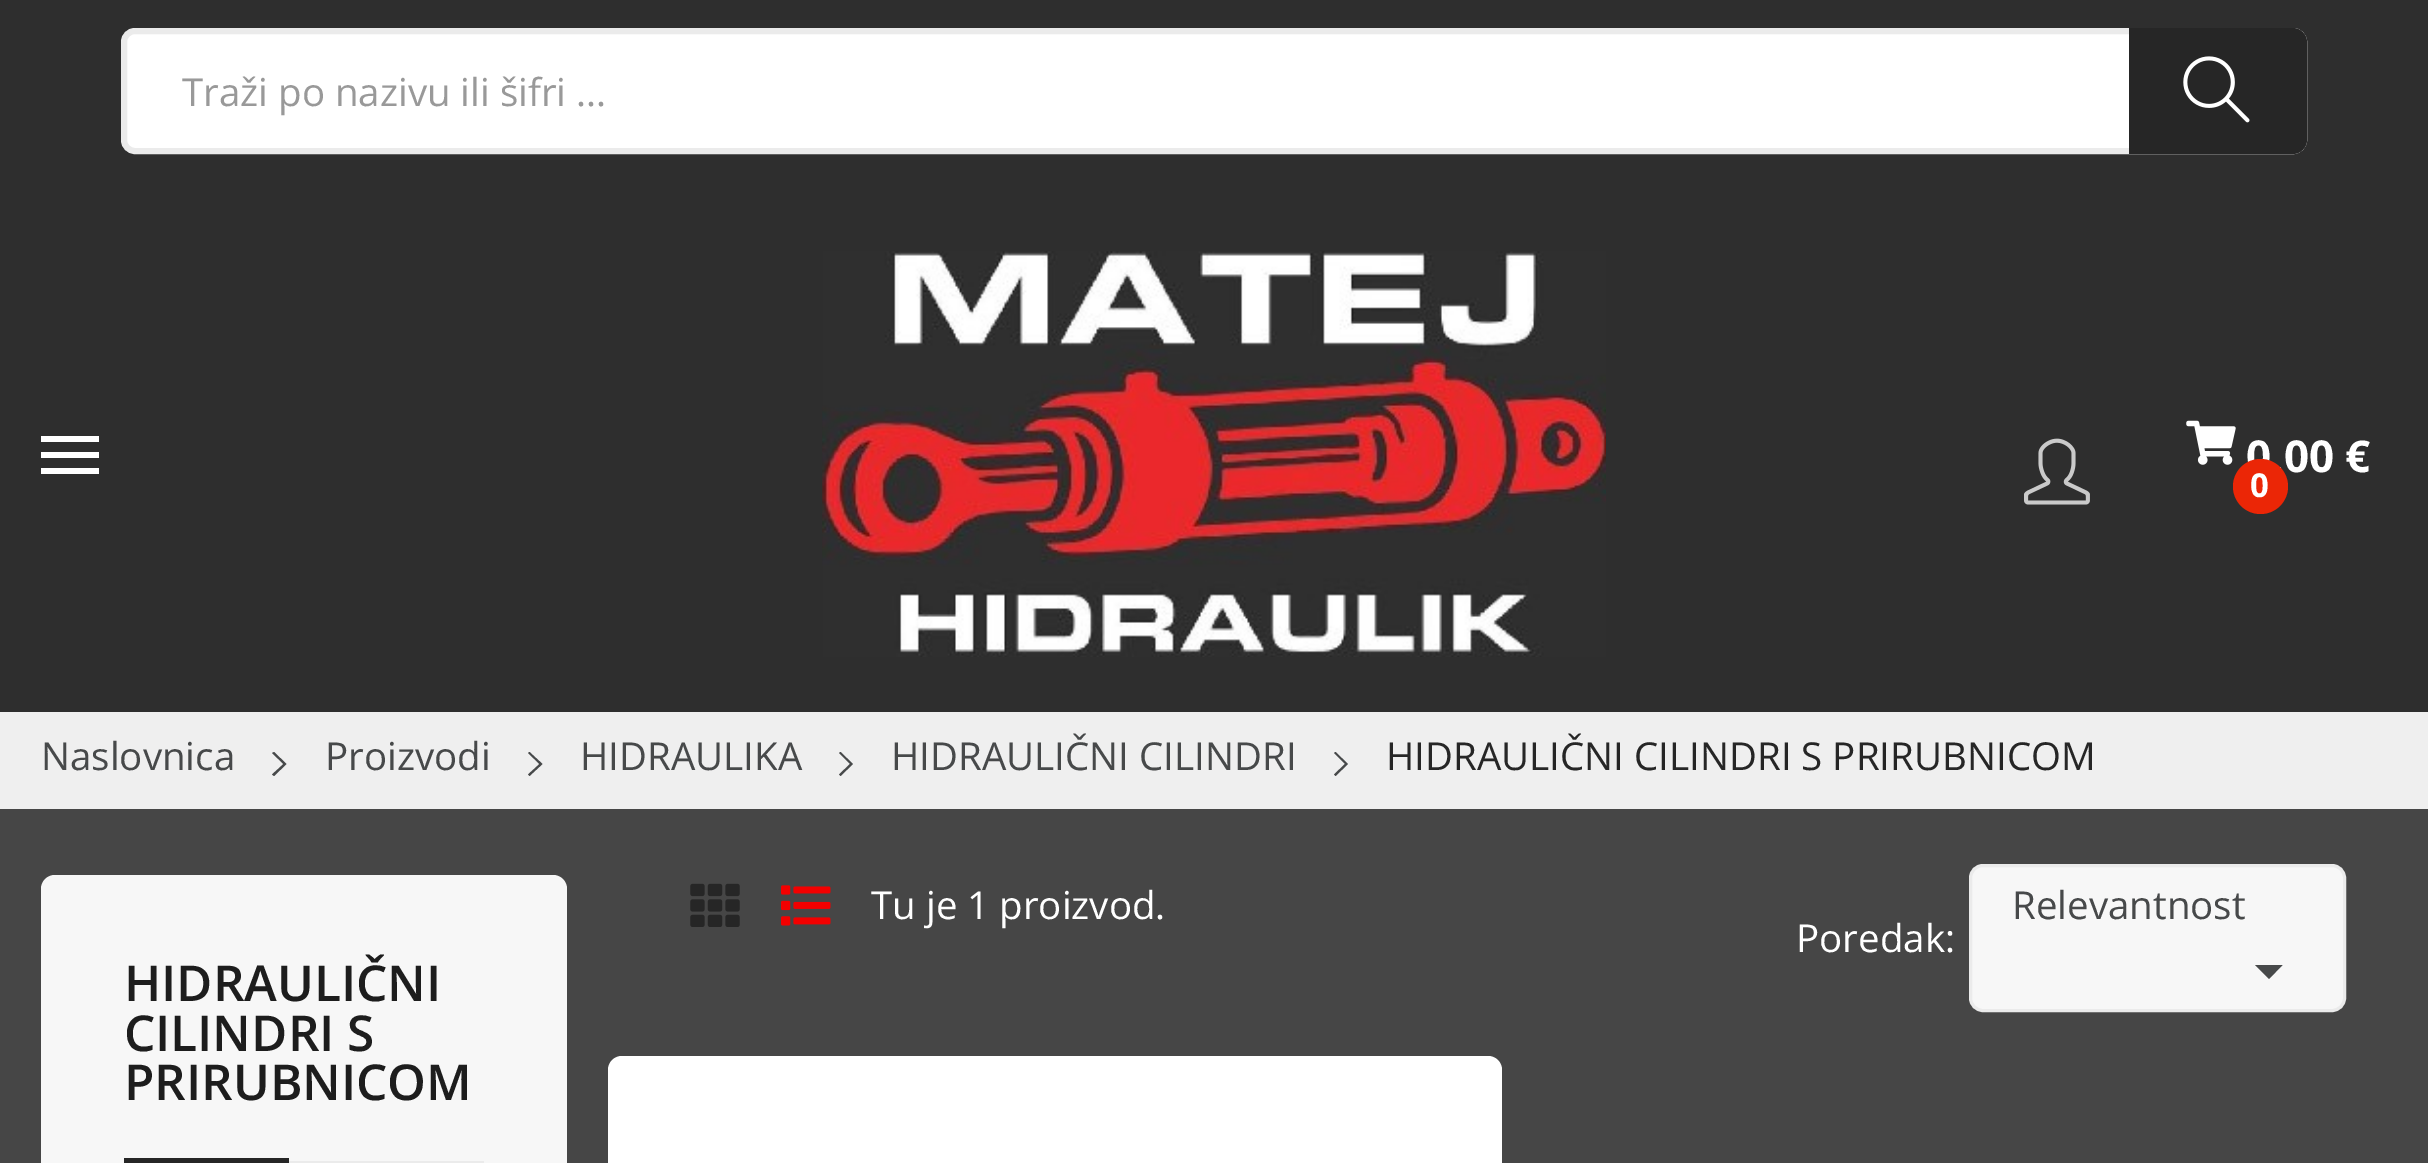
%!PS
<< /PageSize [2428 1163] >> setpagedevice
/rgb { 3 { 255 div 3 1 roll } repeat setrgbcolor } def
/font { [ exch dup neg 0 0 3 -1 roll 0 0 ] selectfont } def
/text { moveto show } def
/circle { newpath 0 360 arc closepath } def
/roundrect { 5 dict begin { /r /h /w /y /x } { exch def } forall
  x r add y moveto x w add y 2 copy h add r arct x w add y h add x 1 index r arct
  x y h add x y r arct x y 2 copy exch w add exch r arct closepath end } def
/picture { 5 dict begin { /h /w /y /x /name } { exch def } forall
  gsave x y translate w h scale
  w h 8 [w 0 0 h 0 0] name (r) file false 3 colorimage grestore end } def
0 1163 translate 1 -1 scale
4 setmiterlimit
46 46 46 rgb
0 0 2428 1163 rectfill
255 255 255 rgb
124 31 2180 120 11 roundrect gsave fill grestore
235 235 235 rgb
6 setlinewidth
stroke
38 38 38 rgb
2129 28 moveto 164 0 rlineto 7.5 0 14 6.5 14 14 rcurveto 0 98 rlineto 0 7.5 -6.5 14 -14 14 rcurveto -164 0 rlineto closepath fill
(img_01.rgb) 2183 56 67 67 picture
255 255 255 rgb
41 474 moveto 0 -6 rlineto 58 0 rlineto 0 6 rlineto closepath 41 458 moveto 0 -6 rlineto 58 0 rlineto 0 6 rlineto closepath 41 436 moveto 58 0 rlineto 0 6 rlineto -58 0 rlineto closepath fill
(img_02.rgb) 822 251 784 406 picture
(img_03.rgb) 2024 438 66 67 picture
(img_04.rgb) 2186 420 50 45 picture
239 239 239 rgb
0 712 2428 97 rectfill
71 73 74 rgb
272 753 moveto 2 -1 rlineto 12.5 12 rlineto -12.5 12 rlineto -2 -1.5 rlineto 11.5 -10.5 rlineto closepath fill
528 753 moveto 1.5 -1 rlineto 13 12 rlineto -13 12 rlineto -1.5 -1.5 rlineto 11.5 -10.5 rlineto closepath fill
839 753 moveto 1.5 -1 rlineto 12.5 12 rlineto -12.5 12 rlineto -1.5 -1.5 rlineto 11 -10.5 rlineto closepath fill
1334 753 moveto 1.5 -1 rlineto 12.5 12 rlineto -12.5 12 rlineto -1.5 -1.5 rlineto 11 -10.5 rlineto closepath fill
70 70 70 rgb
0 809 2428 354 rectfill
(img_05.rgb) 690 883 50 44 picture
(img_06.rgb) 781 885 50 41 picture
247 247 247 rgb
1970.5 865.5 374 145 12.5 roundrect gsave fill grestore
235 235 235 rgb
3 setlinewidth
stroke
71 73 74 rgb
2255 965 moveto 27.5 0 rlineto -13.5 14 rlineto closepath fill
255 255 255 rgb
608 1056 894 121 14 roundrect fill
247 247 247 rgb
41 875 526 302 14 roundrect fill
235 235 235 rgb
289 1161 195 2 rectfill
38 38 38 rgb
124 1158 165 5 rectfill
/OpenSans-Regular 38.5 font
153 153 153 rgb
(Traži po nazivu ili šifri ...) 182 106 text
/OpenSans-Bold 44 font
255 255 255 rgb
(0,00 €) 2246 472 text
235 38 6 rgb
2260.5 486.5 27.5 circle fill
/OpenSans-Bold 33 font
255 255 255 rgb
(0) 2250 497 text
/OpenSans-Regular 38.5 font
71 73 74 rgb
(Naslovnica) 41 770 text
(Proizvodi) 325 770 text
(HIDRAULIKA) 580 770 text
(HIDRAULIČNI CILINDRI) 891 770 text
38 38 38 rgb
(HIDRAULIČNI CILINDRI S PRIRUBNICOM) 1386 770 text
255 255 255 rgb
(Tu je 1 proizvod.) 871 919 text
71 73 74 rgb
(Relevantnost) 2012 919 text
255 255 255 rgb
(Poredak:) 1796 952 text
/OpenSans-SemiBold 49.5 font
29 29 29 rgb
(HIDRAULIČNI) 124 1001 text
(CILINDRI S) 124 1051 text
(PRIRUBNICOM) 124 1100 text
showpage
